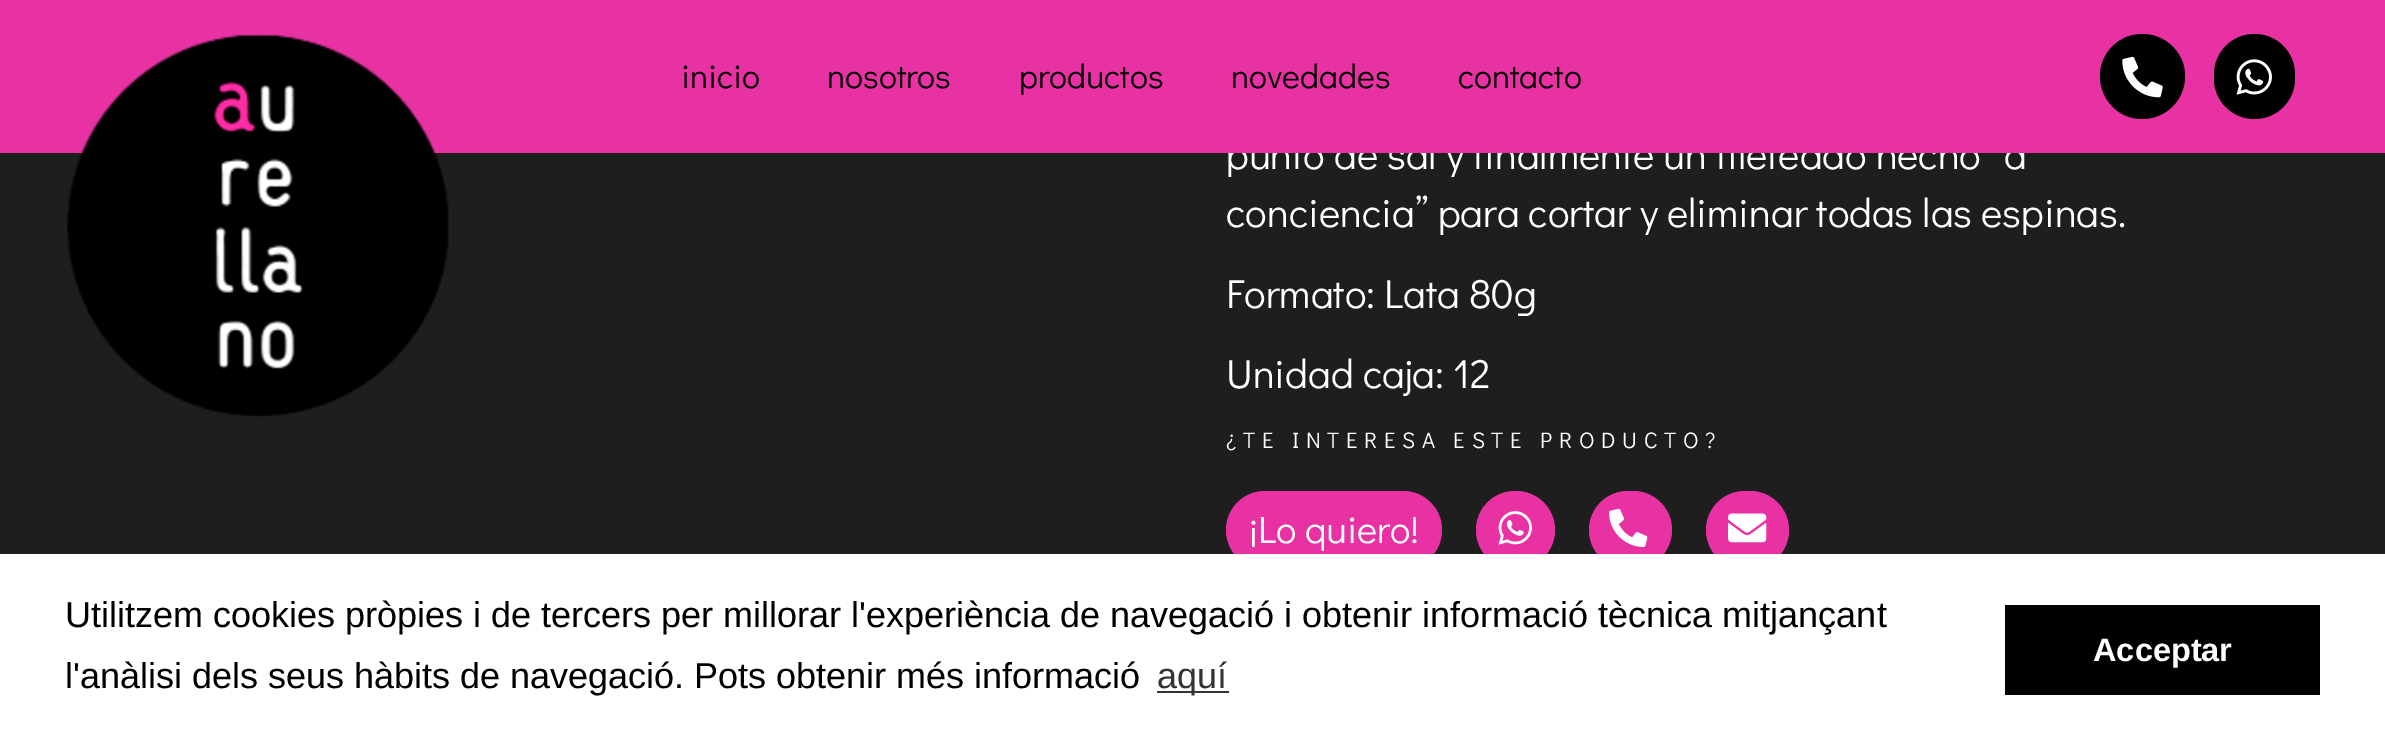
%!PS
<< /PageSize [2385 746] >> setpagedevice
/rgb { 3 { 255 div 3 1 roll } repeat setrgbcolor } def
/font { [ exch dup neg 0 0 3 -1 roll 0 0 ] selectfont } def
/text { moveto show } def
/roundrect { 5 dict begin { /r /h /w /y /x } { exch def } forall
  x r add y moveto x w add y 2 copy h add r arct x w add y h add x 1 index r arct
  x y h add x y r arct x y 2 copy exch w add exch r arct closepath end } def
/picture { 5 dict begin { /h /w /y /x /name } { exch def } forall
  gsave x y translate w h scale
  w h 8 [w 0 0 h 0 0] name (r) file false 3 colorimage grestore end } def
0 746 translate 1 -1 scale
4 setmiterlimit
30 30 30 rgb
0 0 2385 746 rectfill
232 50 163 rgb
1226 491 216 78 39 roundrect fill
1476 491 79 78 39 roundrect fill
(img_04.rgb) 1498 511 34 34 picture
1589 491 83 78 39 roundrect fill
(img_05.rgb) 1609 508 39 39 picture
1706 491 83 78 39 roundrect fill
(img_06.rgb) 1728 513 39 30 picture
255 255 255 rgb
0 554 2385 192 rectfill
51 51 51 rgb
1157 691 72 2 rectfill
0 0 0 rgb
2005 605 315 90 rectfill
/DidactGothic-Regular 40.5 font
255 255 255 rgb
(punto de sal y finalmente un fileteado hecho “a) 1226 169 text
232 50 163 rgb
0 0 2385 153 rectfill
(img_01.rgb) 67 34 382 383 picture
0 0 0 rgb
2142 34 moveto -23 0 -42 19 -42 42 rcurveto 0 24 19 43 42 43 rcurveto 24 0 43 -19 43 -43 rcurveto 0 -23 -19 -42 -43 -42 rcurveto closepath fill
(img_02.rgb) 2122 56 41 42 picture
/DidactGothic-Regular 33.75 font
(contacto) 1458 88 text
(novedades) 1231 88 text
(productos) 1019 88 text
(nosotros) 827 88 text
(inicio) 681 88 text
2214 34 81 85 40.5 roundrect fill
(img_03.rgb) 2236 59 36 36 picture
/DidactGothic-Regular 40.5 font
255 255 255 rgb
(conciencia” para cortar y eliminar todas las espinas.) 1226 227 text
(Formato: Lata 80g) 1226 308 text
(Unidad caja: 12) 1226 388 text
/DidactGothic-Regular 22.5 font
1226 448 moveto 6.75 0 (¿TE INTERESA ESTE PRODUCTO?) ashow
/DidactGothic-Regular 38.25 font
(¡Lo quiero!) 1249 543 text
/LiberationSans-Regular 36 font
0 0 0 rgb
(Utilitzem cookies pròpies i de tercers per millorar l'experiència de navegació i obtenir informació tècnica mitjançant) 65 627 text
(l'anàlisi dels seus hàbits de navegació. Pots obtenir més informació) 65 688 text
51 51 51 rgb
(aquí) 1157 688 text
/LiberationSans-Bold 32.5 font
255 255 255 rgb
(Acceptar) 2093 661 text
showpage
